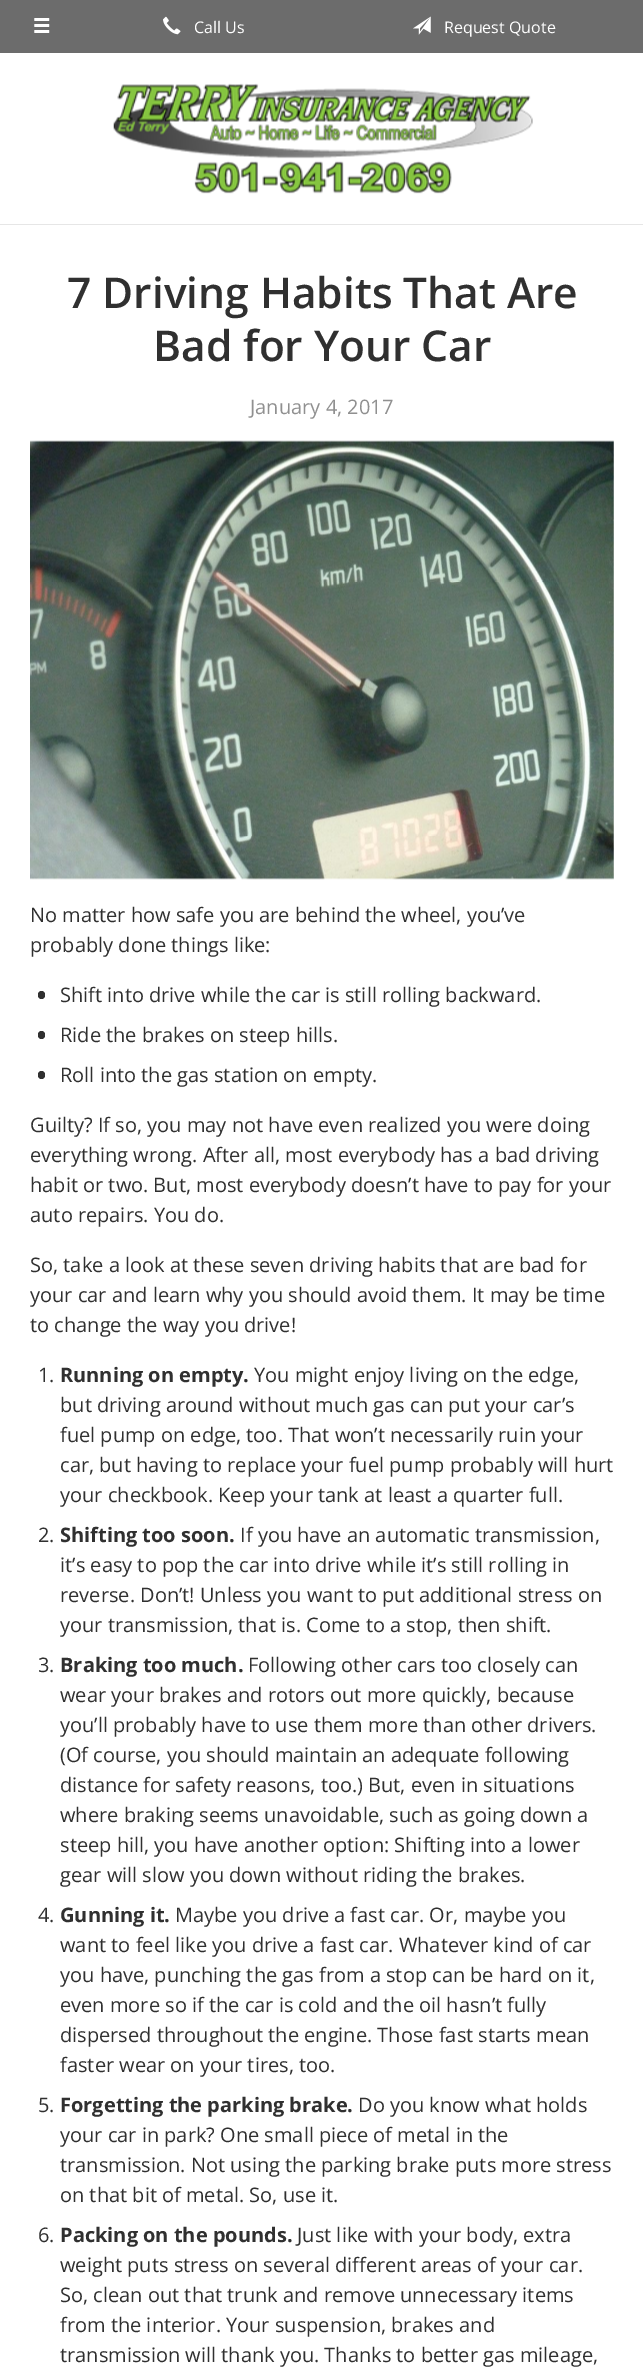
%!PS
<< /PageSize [643 2374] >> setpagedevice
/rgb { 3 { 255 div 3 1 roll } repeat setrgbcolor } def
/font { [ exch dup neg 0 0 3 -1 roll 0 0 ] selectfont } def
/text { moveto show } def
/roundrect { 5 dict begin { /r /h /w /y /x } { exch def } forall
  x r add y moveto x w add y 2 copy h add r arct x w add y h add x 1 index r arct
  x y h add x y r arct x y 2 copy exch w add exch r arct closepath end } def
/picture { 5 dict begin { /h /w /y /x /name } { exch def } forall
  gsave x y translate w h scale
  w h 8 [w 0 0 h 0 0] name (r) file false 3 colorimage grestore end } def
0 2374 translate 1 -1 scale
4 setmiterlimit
108 108 108 rgb
0 0 643 2374 rectfill
(img_01.rgb) 34 18 16 15 picture
(img_02.rgb) 163 16 18 19 picture
(img_03.rgb) 413 16 18 19 picture
255 255 255 rgb
0 53 643 171 rectfill
230 230 230 rgb
0 224 643 1 rectfill
(img_04.rgb) 113 83 420 111 picture
255 255 255 rgb
0 225 643 2149 rectfill
(img_05.rgb) 30 440 584 440 picture
48 48 48 rgb
38 991 7 8 3.5 roundrect fill
38 1031 7 8 3.5 roundrect fill
38 1071 7 8 3.5 roundrect fill
/OpenSans-Regular 16 font
255 255 255 rgb
(Call Us) 194 33 text
(Request Quote) 444 33 text
/OpenSans-SemiBold 42.5 font
48 48 48 rgb
(7 Driving Habits That Are) 67 308 text
(Bad for Your Car) 153 361 text
/OpenSans-Regular 20 font
144 144 144 rgb
(January 4, 2017) 250 414 text
48 48 48 rgb
(No matter how safe you are behind the wheel, you’ve) 30 922 text
(probably done things like:) 30 952 text
(Shift into drive while the car is still rolling backward.) 60 1002 text
(Ride the brakes on steep hills.) 60 1042 text
(Roll into the gas station on empty.) 60 1082 text
(Guilty? If so, you may not have even realized you were doing) 30 1132 text
(everything wrong. After all, most everybody has a bad driving) 30 1162 text
(habit or two. But, most everybody doesn’t have to pay for your) 30 1192 text
(auto repairs. You do.) 30 1222 text
(So, take a look at these seven driving habits that are bad for) 30 1272 text
(your car and learn why you should avoid them. It may be time) 30 1302 text
(to change the way you drive!) 30 1332 text
(1.) 38 1382 text
/OpenSans-Bold 20 font
(Running on empty.) 60 1382 text
/OpenSans-Regular 20 font
(You might enjoy living on the edge,) 254 1382 text
(but driving around without much gas can put your car’s) 60 1412 text
(fuel pump on edge, too. That won’t necessarily ruin your) 60 1442 text
(car, but having to replace your fuel pump probably will hurt) 60 1472 text
(your checkbook. Keep your tank at least a quarter full.) 60 1502 text
(2.) 38 1542 text
/OpenSans-Bold 20 font
(Shifting too soon.) 60 1542 text
/OpenSans-Regular 20 font
(If you have an automatic transmission,) 240 1542 text
(it’s easy to pop the car into drive while it’s still rolling in) 60 1572 text
(reverse. Don’t! Unless you want to put additional stress on) 60 1602 text
(your transmission, that is. Come to a stop, then shift.) 60 1632 text
(3.) 38 1672 text
/OpenSans-Bold 20 font
(Braking too much.) 60 1672 text
/OpenSans-Regular 20 font
(Following other cars too closely can) 248 1672 text
(wear your brakes and rotors out more quickly, because) 60 1702 text
(you’ll probably have to use them more than other drivers.) 60 1732 text
(\(Of course, you should maintain an adequate following) 60 1762 text
(distance for safety reasons, too.\) But, even in situations) 60 1792 text
(where braking seems unavoidable, such as going down a) 60 1822 text
(steep hill, you have another option: Shifting into a lower) 60 1852 text
(gear will slow you down without riding the brakes.) 60 1882 text
(4.) 38 1922 text
/OpenSans-Bold 20 font
(Gunning it.) 60 1922 text
/OpenSans-Regular 20 font
(Maybe you drive a fast car. Or, maybe you) 175 1922 text
(want to feel like you drive a fast car. Whatever kind of car) 60 1952 text
(you have, punching the gas from a stop can be hard on it,) 60 1982 text
(even more so if the car is cold and the oil hasn’t fully) 60 2012 text
(dispersed throughout the engine. Those fast starts mean) 60 2042 text
(faster wear on your tires, too.) 60 2072 text
(5.) 38 2112 text
/OpenSans-Bold 20 font
(Forgetting the parking brake.) 60 2112 text
/OpenSans-Regular 20 font
(Do you know what holds) 358 2112 text
(your car in park? One small piece of metal in the) 60 2142 text
(transmission. Not using the parking brake puts more stress) 60 2172 text
(on that bit of metal. So, use it.) 60 2202 text
(6.) 38 2242 text
/OpenSans-Bold 20 font
(Packing on the pounds.) 60 2242 text
/OpenSans-Regular 20 font
(Just like with your body, extra) 297 2242 text
(weight puts stress on several different areas of your car.) 60 2272 text
(So, clean out that trunk and remove unnecessary items) 60 2302 text
(from the interior. Your suspension, brakes and) 60 2332 text
(transmission will thank you. Thanks to better gas mileage,) 60 2362 text
showpage
